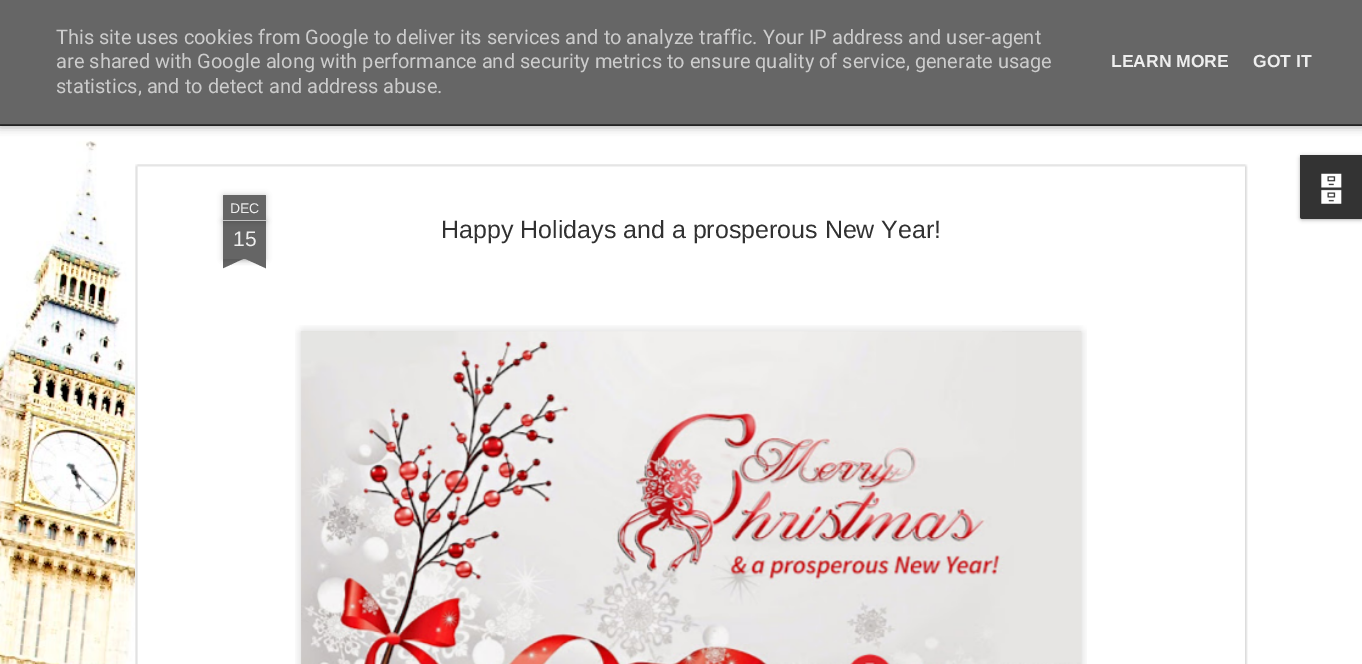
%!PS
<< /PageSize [1362 664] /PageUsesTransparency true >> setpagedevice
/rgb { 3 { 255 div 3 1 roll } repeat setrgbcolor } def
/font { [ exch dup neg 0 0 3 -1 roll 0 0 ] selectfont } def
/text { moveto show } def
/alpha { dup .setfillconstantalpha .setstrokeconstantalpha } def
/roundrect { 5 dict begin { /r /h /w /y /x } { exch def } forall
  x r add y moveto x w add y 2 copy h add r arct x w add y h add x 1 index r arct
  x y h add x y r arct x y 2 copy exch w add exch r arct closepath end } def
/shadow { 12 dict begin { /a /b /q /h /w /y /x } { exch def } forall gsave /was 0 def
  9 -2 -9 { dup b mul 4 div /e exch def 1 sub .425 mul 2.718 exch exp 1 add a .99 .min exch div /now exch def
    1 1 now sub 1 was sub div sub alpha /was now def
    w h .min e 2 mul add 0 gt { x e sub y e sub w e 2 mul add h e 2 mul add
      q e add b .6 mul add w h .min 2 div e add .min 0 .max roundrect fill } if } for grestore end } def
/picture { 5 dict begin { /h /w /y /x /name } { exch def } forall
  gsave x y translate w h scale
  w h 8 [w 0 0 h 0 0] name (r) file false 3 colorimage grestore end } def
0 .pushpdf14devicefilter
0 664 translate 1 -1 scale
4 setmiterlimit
49 49 49 rgb
0 0 1362 664 rectfill
(img_01.rgb) 0 126 1362 538 picture
0 0 0 rgb
0 81 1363 44 0 5 0.5 shadow
102 102 102 rgb
0 0 1362 124 rectfill
49 49 49 rgb
0 124 1362 1 rectfill
255 255 255 rgb
135 370 916 294 rectfill
(img_02.rgb) 135 164 1113 500 picture
0 0 0 rgb
223 221 43 38 0 3 0.2 shadow
101 101 101 rgb
223 221 43 38 rectfill
0 0 0 rgb
223 195 43 26 1 3 0.2 shadow
101 101 101 rgb
224 195 moveto 41 0 rlineto 0.5 0 1 0.5 1 1 rcurveto 0 25 rlineto -43 0 rlineto 0 -25 rlineto 0 -0.5 0.5 -1 1 -1 rcurveto closepath fill
193 193 193 rgb
223 220 43 1 rectfill
gsave
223 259 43 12 rectclip
0 0 0 rgb
211 246 63 13 0 3 0.2 shadow
grestore
gsave
223 259 43 12 rectclip
101 101 101 rgb
212 260 moveto 56 -26 rlineto 5 11 rlineto -56 26 rlineto closepath fill
grestore
gsave
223 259 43 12 rectclip
0 0 0 rgb
215 246 63 13 0 3 0.2 shadow
grestore
gsave
223 259 43 12 rectclip
101 101 101 rgb
221 234 moveto 56 26 rlineto -5 11 rlineto -57 -26 rlineto closepath fill
grestore
(img_03.rgb) 295 325 792 339 picture
(img_04.rgb) 301 331 701 333 picture
0 0 0 rgb
1300 156 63 64 2.5 2 0.3 shadow
51 51 51 rgb
1300 155 moveto 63 0 rlineto 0 64 rlineto -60.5 0 rlineto -1.5 0 -2.5 -1 -2.5 -2.5 rcurveto closepath fill
(img_05.rgb) 1321 173 21 31 picture
/Roboto-Regular 20 font
204 204 204 rgb
(This site uses cookies from Google to deliver its services and to analyze traffic. Your IP address and user-agent) 56 44 text
(are shared with Google along with performance and security metrics to ensure quality of service, generate usage) 56 68 text
(statistics, and to detect and address abuse.) 56 93 text
/LiberationSans-Bold 17.5 font
238 238 238 rgb
(LEARN MORE) 1111 67 text
(GOT IT) 1253 67 text
/LiberationSans-Regular 14 font
(DEC) 230 213 text
/LiberationSans-Regular 21 font
(15) 233 246 text
/LiberationSans-Regular 25 font
49 49 49 rgb
(Happy Holidays and a prosperous New Year!) 441 238 text
.poppdf14devicefilter showpage
